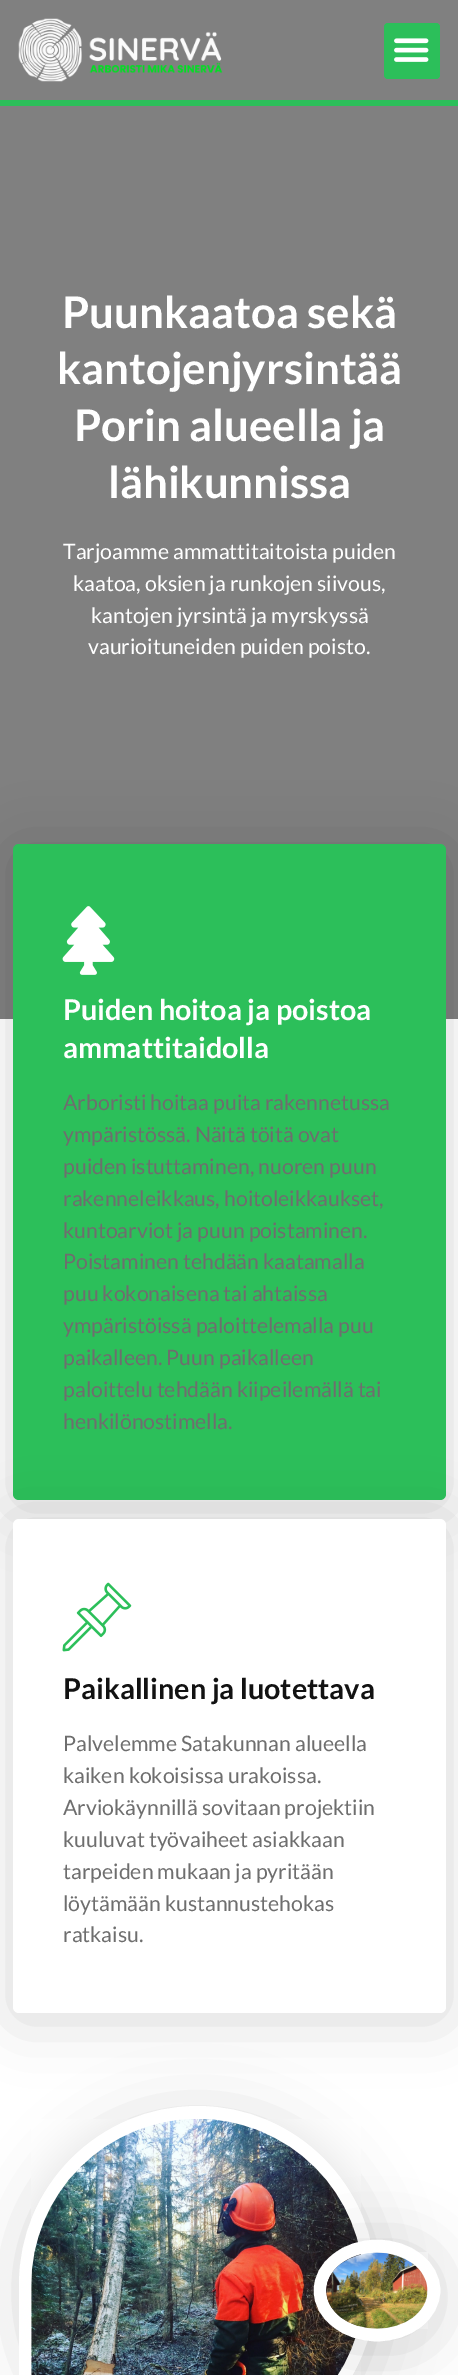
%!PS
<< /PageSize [458 2375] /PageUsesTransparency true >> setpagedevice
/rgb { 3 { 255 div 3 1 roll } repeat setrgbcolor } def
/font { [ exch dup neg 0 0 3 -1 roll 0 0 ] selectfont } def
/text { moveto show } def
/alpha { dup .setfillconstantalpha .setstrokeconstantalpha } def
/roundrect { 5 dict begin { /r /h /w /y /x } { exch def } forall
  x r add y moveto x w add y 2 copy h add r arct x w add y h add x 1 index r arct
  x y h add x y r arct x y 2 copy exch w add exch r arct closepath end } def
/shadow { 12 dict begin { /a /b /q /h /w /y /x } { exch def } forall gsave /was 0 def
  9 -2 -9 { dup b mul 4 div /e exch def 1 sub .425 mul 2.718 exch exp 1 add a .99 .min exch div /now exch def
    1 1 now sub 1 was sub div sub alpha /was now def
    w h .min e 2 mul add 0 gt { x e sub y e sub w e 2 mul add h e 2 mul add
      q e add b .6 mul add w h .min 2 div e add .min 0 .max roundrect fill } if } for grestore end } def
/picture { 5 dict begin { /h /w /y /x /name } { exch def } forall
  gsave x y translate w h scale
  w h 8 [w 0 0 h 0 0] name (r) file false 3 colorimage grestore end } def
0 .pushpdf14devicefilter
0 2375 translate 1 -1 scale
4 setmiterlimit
255 255 255 rgb
0 0 458 2375 rectfill
128 128 128 rgb
0 0 458 1019 rectfill
44 191 90 rgb
0 100 458 6 rectfill
(img_01.rgb) 18 18 205 64 picture
384 23 56 56 4 roundrect fill
(img_02.rgb) 394 38 35 24 picture
0 0 0 rgb
13 850 433 656 6 31 0.15 shadow
44 191 90 rgb
13 844 433 656 6 roundrect fill
(img_03.rgb) 62 906 53 69 picture
0 0 0 rgb
13 1525 433 494 6 31 0.15 shadow
255 255 255 rgb
13 1519 433 494 6 roundrect fill
(img_04.rgb) 62 1582 70 70 picture
0 0 0 rgb
19 2113 357 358 178.5 31 0.15 shadow
255 255 255 rgb
13 setlinewidth
197.5 2112.5 moveto 95 0 172 77 172 172 rcurveto 0 2 rlineto 0 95 -77 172 -172 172 rcurveto -169.5 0 rlineto -1.5 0 -2.5 -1 -2.5 -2.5 rcurveto 0 -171.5 rlineto 0 -95 77 -172 172 -172 rcurveto closepath stroke
(img_05.rgb) 31 2119 330 256 picture
0 0 0 rgb
314 2246 126 102 51 31 0.15 shadow
255 255 255 rgb
12.5 setlinewidth
377 2246 moveto 31.5 0 57 20 57 44.5 rcurveto 0 24.5 -25.5 44.5 -57 44.5 rcurveto -31.5 0 -57 -20 -57 -44.5 rcurveto 0 -24.5 25.5 -44.5 57 -44.5 rcurveto closepath stroke
(img_06.rgb) 326 2252 102 77 picture
/Lato-Bold 43.75 font
(Puunkaatoa sekä) 62 328 text
(kantojenjyrsintää) 57 384 text
(Porin alueella ja) 74 441 text
(lähikunnissa) 108 498 text
/Lato-Regular 21.25 font
(Tarjoamme ammattitaitoista puiden) 63 559 text
(kaatoa, oksien ja runkojen siivous,) 73 591 text
(kantojen jyrsintä ja myrskyssä) 91 623 text
(vaurioituneiden puiden poisto.) 88 654 text
/Lato-Bold 28.75 font
(Puiden hoitoa ja poistoa) 63 1020 text
(ammattitaidolla) 63 1058 text
/Lato-Regular 21.25 font
110 110 110 rgb
(Arboristi hoitaa puita rakennetussa) 63 1110 text
(ympäristössä. Näitä töitä ovat) 63 1142 text
(puiden istuttaminen, nuoren puun) 63 1174 text
(rakenneleikkaus, hoitoleikkaukset,) 63 1206 text
(kuntoarviot ja puun poistaminen.) 63 1238 text
(Poistaminen tehdään kaatamalla) 63 1269 text
(puu kokonaisena tai ahtaissa) 63 1301 text
(ympäristöissä paloittelemalla puu) 63 1333 text
(paikalleen. Puun paikalleen) 63 1365 text
(paloittelu tehdään kiipeilemällä tai) 63 1397 text
(henkilönostimella.) 63 1429 text
/Lato-Bold 28.75 font
18 18 18 rgb
(Paikallinen ja luotettava) 63 1699 text
/Lato-Regular 21.25 font
110 110 110 rgb
(Palvelemme Satakunnan alueella) 63 1751 text
(kaiken kokoisissa urakoissa.) 63 1783 text
(Arviokäynnillä sovitaan projektiin) 63 1815 text
(kuuluvat työvaiheet asiakkaan) 63 1847 text
(tarpeiden mukaan ja pyritään) 63 1879 text
(löytämään kustannustehokas) 63 1911 text
(ratkaisu.) 63 1942 text
.poppdf14devicefilter showpage
